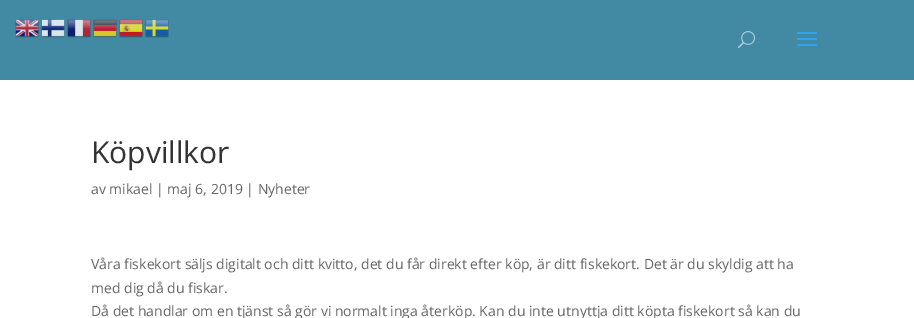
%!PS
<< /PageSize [914 318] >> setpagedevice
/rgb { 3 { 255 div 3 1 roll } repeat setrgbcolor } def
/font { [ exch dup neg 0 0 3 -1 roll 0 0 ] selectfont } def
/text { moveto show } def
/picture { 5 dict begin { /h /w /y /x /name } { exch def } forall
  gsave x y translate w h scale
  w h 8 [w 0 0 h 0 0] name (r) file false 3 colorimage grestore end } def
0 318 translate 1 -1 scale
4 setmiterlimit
255 255 255 rgb
0 0 914 318 rectfill
66 137 163 rgb
0 0 914 80 rectfill
(img_01.rgb) 15 19 24 19 picture
(img_02.rgb) 41 19 24 19 picture
(img_03.rgb) 67 19 24 19 picture
(img_04.rgb) 93 19 24 19 picture
(img_05.rgb) 119 19 24 19 picture
(img_06.rgb) 145 19 24 19 picture
(img_07.rgb) 738 31 17 18 picture
(img_08.rgb) 797 32 20 14 picture
/OpenSans-Regular 30 font
51 51 51 rgb
(Köpvillkor) 91 163 text
/OpenSans-Regular 14 font
102 102 102 rgb
(av mikael | maj 6, 2019 | Nyheter) 91 194 text
(Våra fiskekort säljs digitalt och ditt kvitto, det du får direkt efter köp, är ditt fiskekort. Det är du skyldig att ha) 91 269 text
(med dig då du fiskar.) 91 293 text
(Då det handlar om en tjänst så gör vi normalt inga återköp. Kan du inte utnyttja ditt köpta fiskekort så kan du) 91 316 text
showpage
